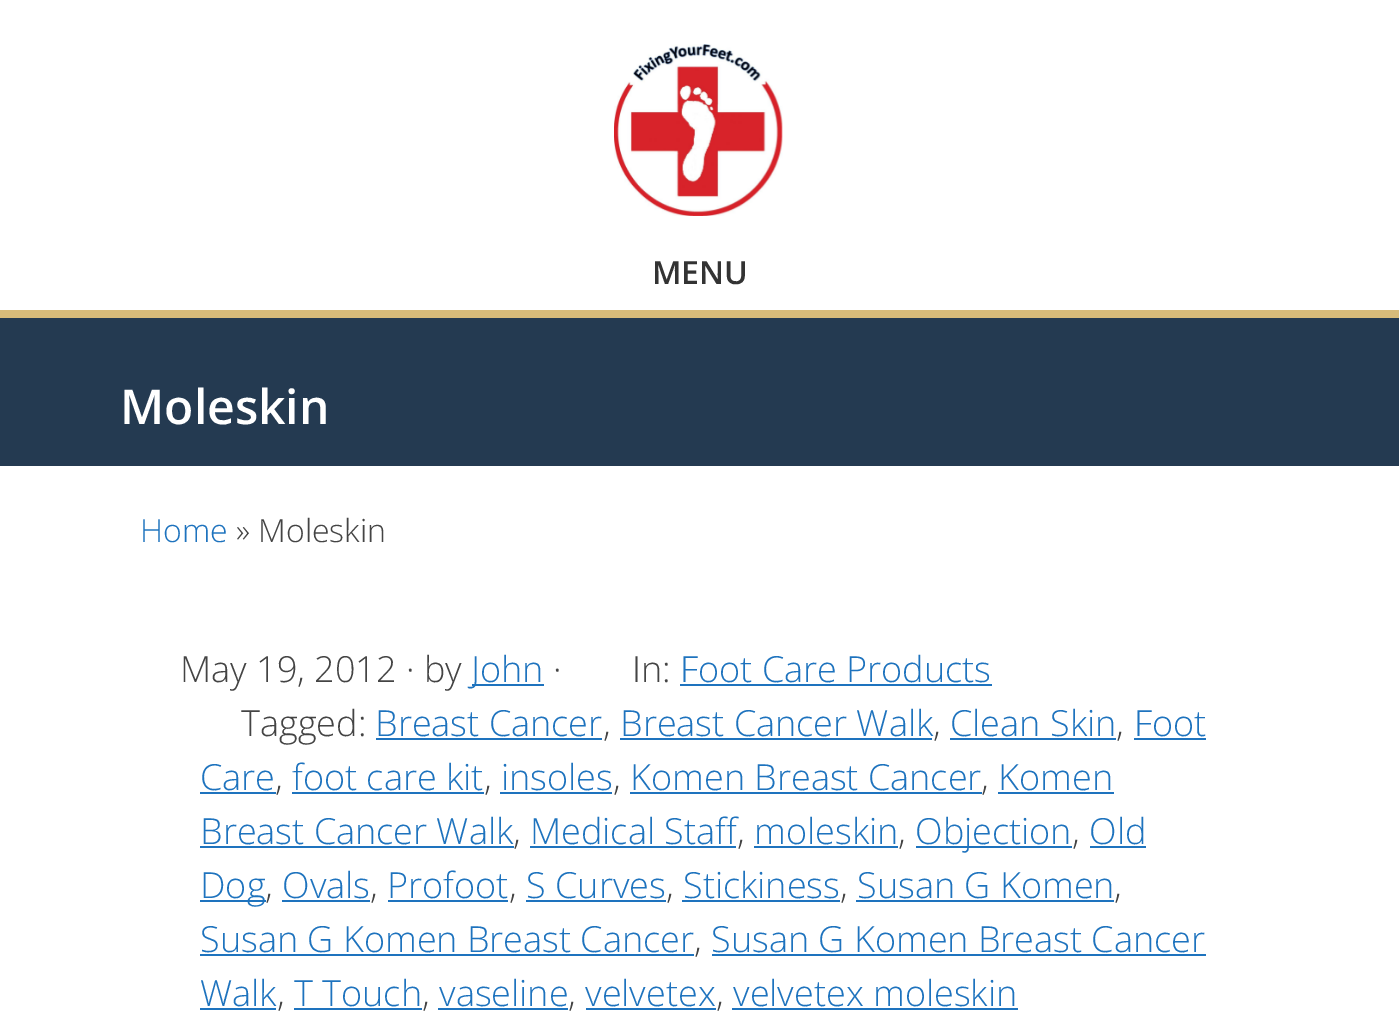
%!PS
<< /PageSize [1399 1036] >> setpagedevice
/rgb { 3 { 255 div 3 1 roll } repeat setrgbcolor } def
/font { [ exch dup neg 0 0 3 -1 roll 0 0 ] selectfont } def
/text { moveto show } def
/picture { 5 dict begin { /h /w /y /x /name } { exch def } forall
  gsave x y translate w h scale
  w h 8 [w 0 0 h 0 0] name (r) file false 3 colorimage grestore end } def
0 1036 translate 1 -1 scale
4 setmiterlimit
255 255 255 rgb
0 0 1399 1036 rectfill
215 187 122 rgb
0 310 1399 8 rectfill
(img_01.rgb) 614 44 169 172 picture
36 58 81 rgb
0 318 1399 148 rectfill
30 115 190 rgb
472 684 72 2 rectfill
680 684 312 2 rectfill
376 738 226 2 rectfill
620 738 312 2 rectfill
950 738 166 2 rectfill
1134 738 72 2 rectfill
200 792 76 2 rectfill
292 792 192 2 rectfill
500 792 112 2 rectfill
630 792 352 2 rectfill
998 792 116 2 rectfill
200 846 314 2 rectfill
530 846 206 2 rectfill
754 846 144 2 rectfill
916 846 156 2 rectfill
1090 846 56 2 rectfill
200 900 66 2 rectfill
282 900 88 2 rectfill
388 900 120 2 rectfill
526 900 140 2 rectfill
682 900 158 2 rectfill
856 900 258 2 rectfill
200 954 494 2 rectfill
712 954 494 2 rectfill
200 1008 76 2 rectfill
294 1008 128 2 rectfill
438 1008 130 2 rectfill
586 1008 130 2 rectfill
732 1008 286 2 rectfill
/OpenSans-SemiBold 32 font
51 51 51 rgb
(MENU) 652 284 text
/OpenSans-SemiBold 48 font
255 255 255 rgb
(Moleskin) 120 424 text
/OpenSans-Light 32 font
30 115 190 rgb
(Home) 140 542 text
68 68 68 rgb
(» Moleskin) 236 542 text
/OpenSans-Light 36 font
(May 19, 2012 · by) 180 682 text
30 115 190 rgb
(John) 471 682 text
68 68 68 rgb
(·) 553 682 text
(In:) 632 682 text
30 115 190 rgb
(Foot Care Products) 680 682 text
68 68 68 rgb
(Tagged:) 241 736 text
30 115 190 rgb
(Breast Cancer) 375 736 text
68 68 68 rgb
(,) 603 736 text
30 115 190 rgb
(Breast Cancer Walk) 620 736 text
68 68 68 rgb
(,) 933 736 text
30 115 190 rgb
(Clean Skin) 950 736 text
68 68 68 rgb
(,) 1116 736 text
30 115 190 rgb
(Foot) 1134 736 text
(Care) 200 790 text
68 68 68 rgb
(,) 275 790 text
30 115 190 rgb
(foot care kit) 292 790 text
68 68 68 rgb
(,) 484 790 text
30 115 190 rgb
(insoles) 501 790 text
68 68 68 rgb
(,) 613 790 text
30 115 190 rgb
(Komen Breast Cancer) 630 790 text
68 68 68 rgb
(,) 981 790 text
30 115 190 rgb
(Komen) 998 790 text
(Breast Cancer Walk) 200 844 text
68 68 68 rgb
(,) 513 844 text
30 115 190 rgb
(Medical Staff) 530 844 text
68 68 68 rgb
(,) 737 844 text
30 115 190 rgb
(moleskin) 754 844 text
68 68 68 rgb
(,) 898 844 text
30 115 190 rgb
(Objection) 915 844 text
68 68 68 rgb
(,) 1072 844 text
30 115 190 rgb
(Old) 1089 844 text
(Dog) 200 898 text
68 68 68 rgb
(,) 265 898 text
30 115 190 rgb
(Ovals) 282 898 text
68 68 68 rgb
(,) 370 898 text
30 115 190 rgb
(Profoot) 387 898 text
68 68 68 rgb
(,) 509 898 text
30 115 190 rgb
(S Curves) 526 898 text
68 68 68 rgb
(,) 666 898 text
30 115 190 rgb
(Stickiness) 683 898 text
68 68 68 rgb
(,) 840 898 text
30 115 190 rgb
(Susan G Komen) 857 898 text
68 68 68 rgb
(,) 1114 898 text
30 115 190 rgb
(Susan G Komen Breast Cancer) 200 952 text
68 68 68 rgb
(,) 694 952 text
30 115 190 rgb
(Susan G Komen Breast Cancer) 711 952 text
(Walk) 200 1006 text
68 68 68 rgb
(,) 277 1006 text
30 115 190 rgb
(T Touch) 294 1006 text
68 68 68 rgb
(,) 422 1006 text
30 115 190 rgb
(vaseline) 439 1006 text
68 68 68 rgb
(,) 568 1006 text
30 115 190 rgb
(velvetex) 585 1006 text
68 68 68 rgb
(,) 716 1006 text
30 115 190 rgb
(velvetex moleskin) 733 1006 text
showpage
